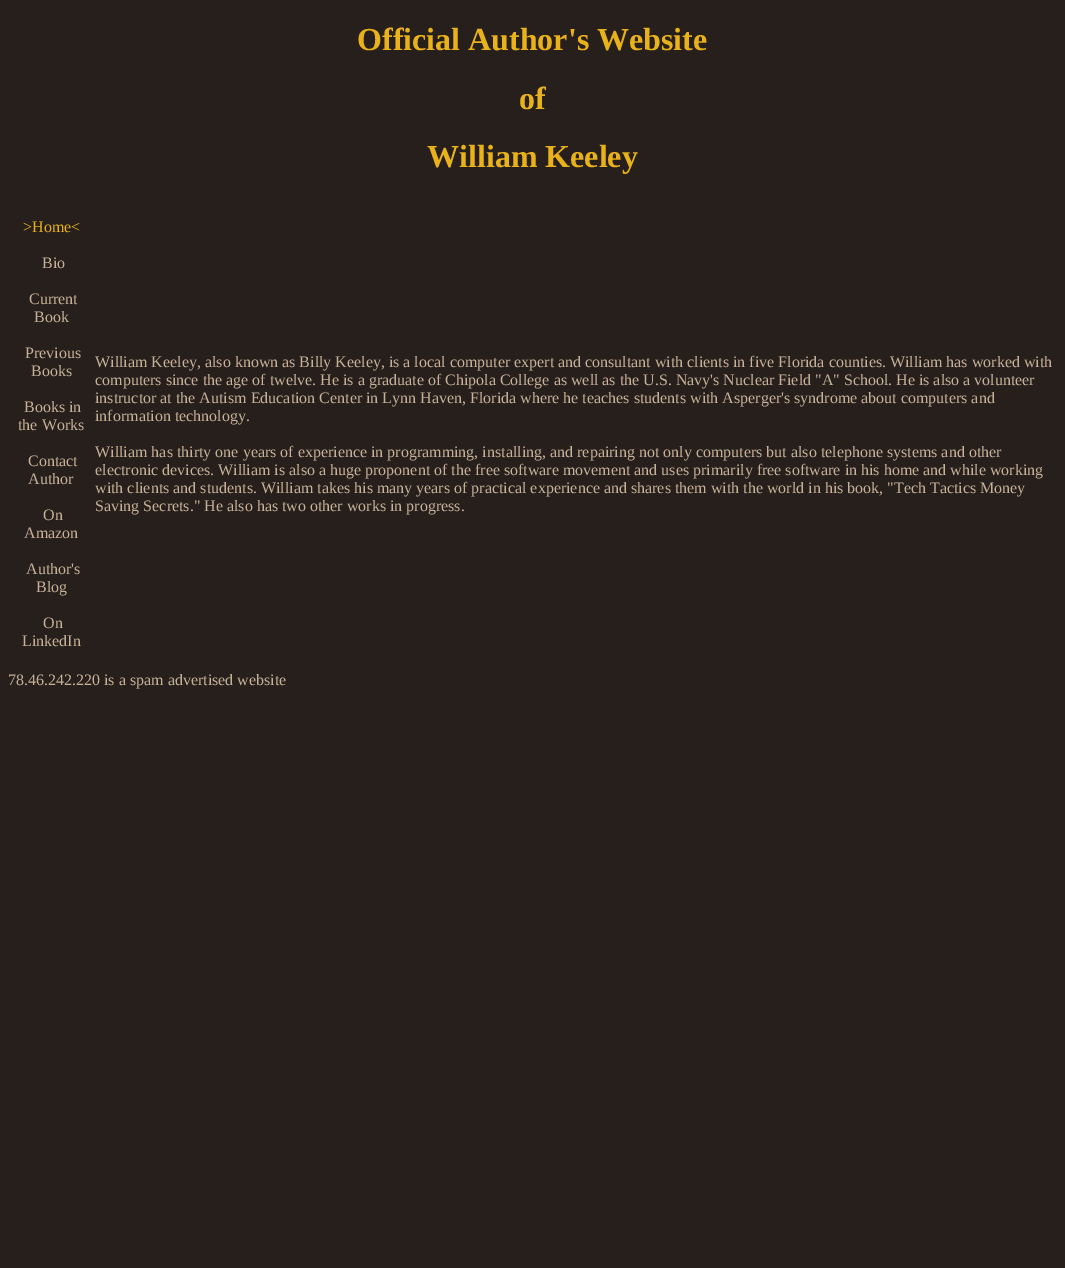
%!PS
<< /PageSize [1065 1268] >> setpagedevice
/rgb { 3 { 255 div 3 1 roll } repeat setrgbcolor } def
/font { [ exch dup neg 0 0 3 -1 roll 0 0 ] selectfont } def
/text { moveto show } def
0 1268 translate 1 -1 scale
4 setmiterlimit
39 31 28 rgb
0 0 1065 1268 rectfill
/LiberationSerif-Bold 32 font
233 177 26 rgb
(Official Author's Website) 357 50 text
(of) 519 109 text
(William Keeley) 427 167 text
/LiberationSerif-Regular 16 font
(>Home<) 23 232 text
199 178 153 rgb
(Bio) 42 268 text
(Current) 29 304 text
(Book) 34 322 text
(Previous) 25 358 text
(Books) 31 376 text
(Books in) 24 412 text
(the Works) 18 430 text
(Contact) 28 466 text
(Author) 28 484 text
(On) 43 520 text
(Amazon) 24 538 text
(Author's) 26 574 text
(Blog) 36 592 text
(On) 43 628 text
(LinkedIn) 22 646 text
(William Keeley, also known as Billy Keeley, is a local computer expert and consultant with clients in five Florida counties. William has worked with) 95 367 text
(computers since the age of twelve. He is a graduate of Chipola College as well as the U.S. Navy's Nuclear Field "A" School. He is also a volunteer) 95 385 text
(instructor at the Autism Education Center in Lynn Haven, Florida where he teaches students with Asperger's syndrome about computers and) 95 403 text
(information technology.) 95 421 text
(William has thirty one years of experience in programming, installing, and repairing not only computers but also telephone systems and other) 95 457 text
(electronic devices. William is also a huge proponent of the free software movement and uses primarily free software in his home and while working) 95 475 text
(with clients and students. William takes his many years of practical experience and shares them with the world in his book, "Tech Tactics Money) 95 493 text
(Saving Secrets." He also has two other works in progress.) 95 511 text
(78.46.242.220 is a spam advertised website) 8 685 text
showpage
